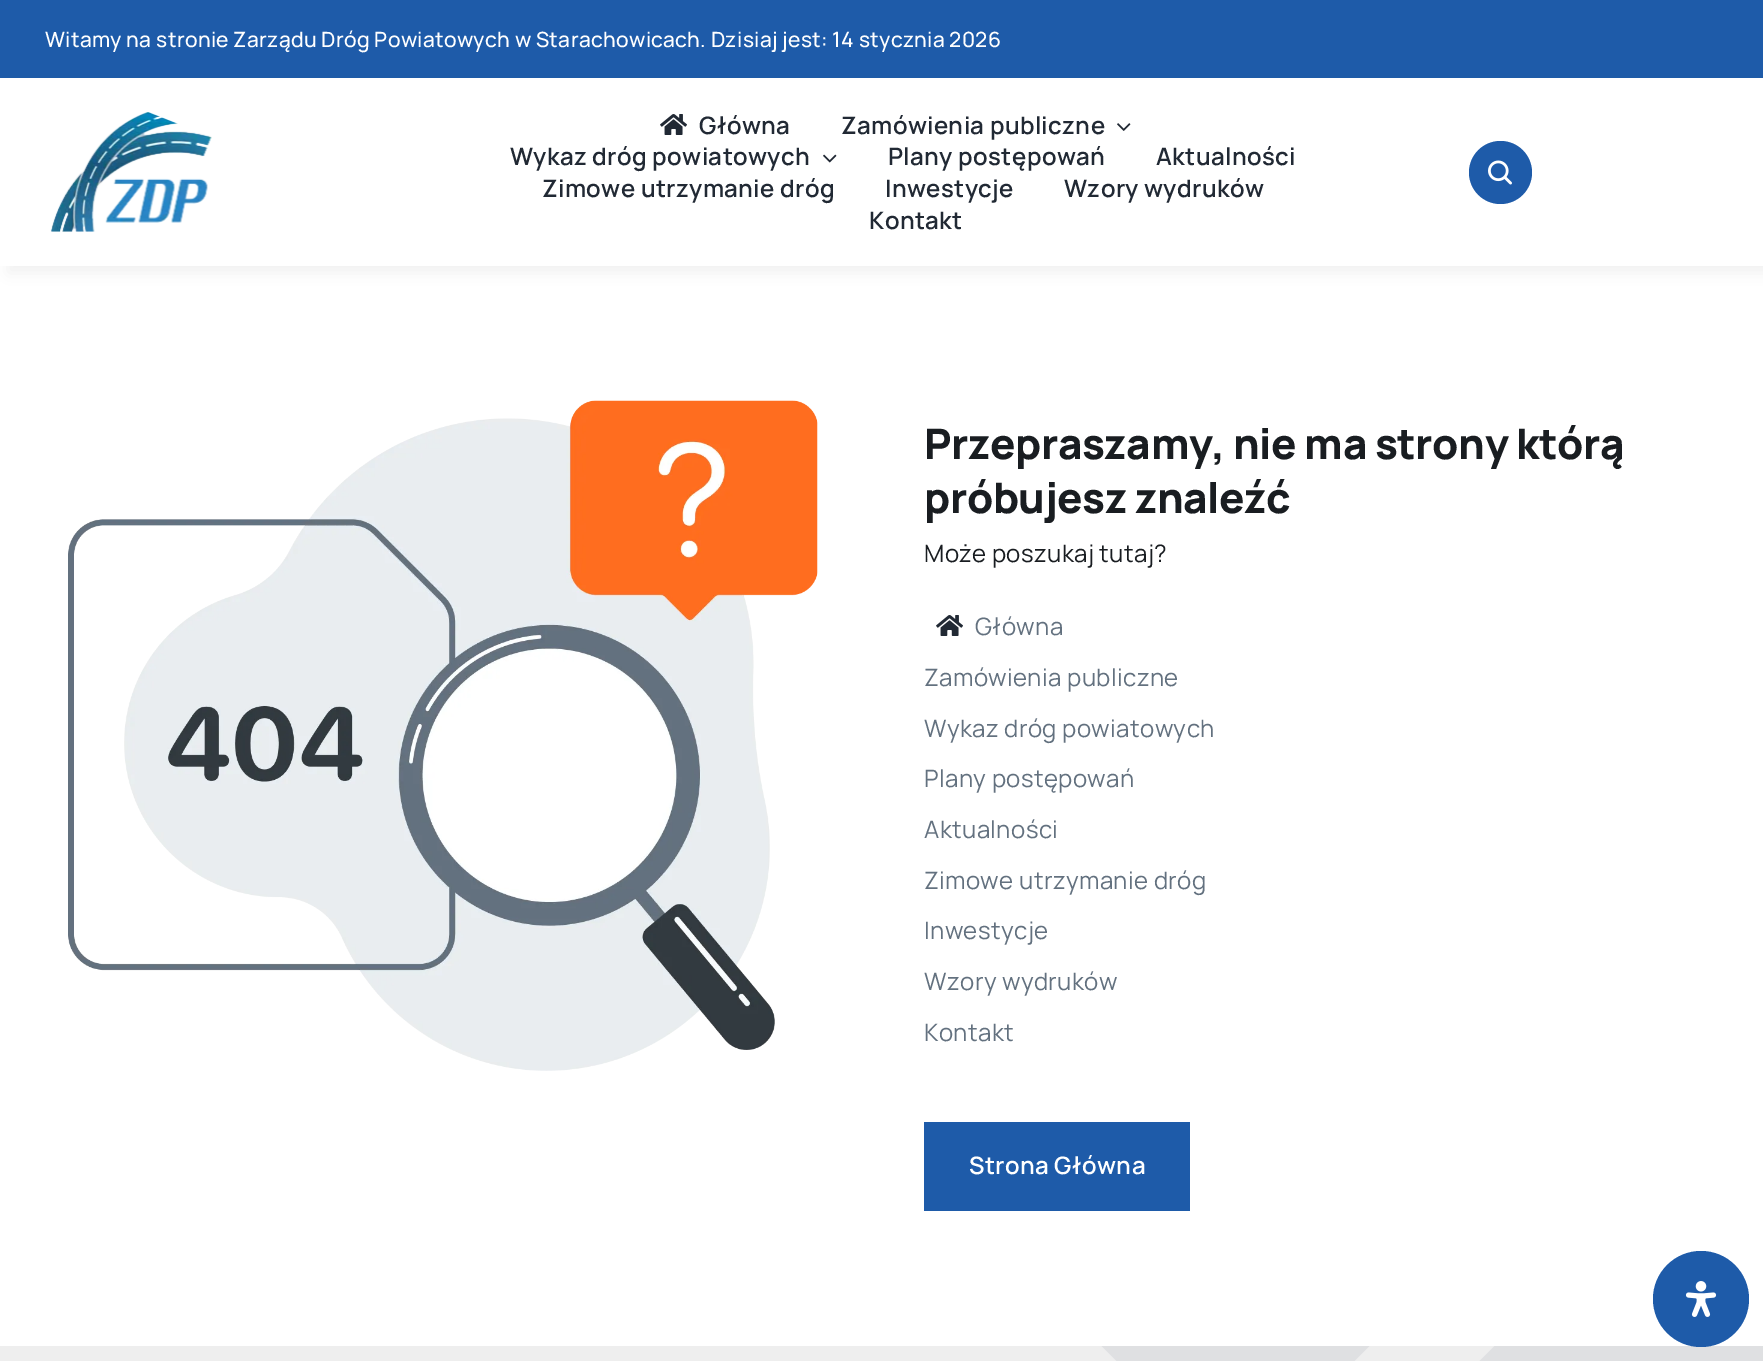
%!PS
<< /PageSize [1763 1361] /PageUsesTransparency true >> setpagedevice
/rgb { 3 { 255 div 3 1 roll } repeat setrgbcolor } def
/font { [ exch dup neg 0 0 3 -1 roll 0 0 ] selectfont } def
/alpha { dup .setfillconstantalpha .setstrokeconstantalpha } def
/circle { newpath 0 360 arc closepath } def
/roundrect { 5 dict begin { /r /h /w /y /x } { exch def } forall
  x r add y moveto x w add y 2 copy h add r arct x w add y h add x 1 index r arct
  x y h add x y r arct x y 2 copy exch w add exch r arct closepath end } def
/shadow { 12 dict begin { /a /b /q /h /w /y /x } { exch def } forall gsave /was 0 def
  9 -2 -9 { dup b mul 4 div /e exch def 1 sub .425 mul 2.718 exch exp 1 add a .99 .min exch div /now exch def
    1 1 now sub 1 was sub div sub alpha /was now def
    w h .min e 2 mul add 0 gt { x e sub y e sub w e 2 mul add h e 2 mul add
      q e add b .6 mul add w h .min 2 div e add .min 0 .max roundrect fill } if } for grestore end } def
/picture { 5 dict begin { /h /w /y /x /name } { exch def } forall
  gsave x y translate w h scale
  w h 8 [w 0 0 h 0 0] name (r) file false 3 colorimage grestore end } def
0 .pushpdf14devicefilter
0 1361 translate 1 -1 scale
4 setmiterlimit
255 255 255 rgb
0 0 1763 1361 rectfill
30 91 169 rgb
0 0 1763 78 rectfill
gsave
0 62 moveto 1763 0 rlineto 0 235 rlineto -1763 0 rlineto closepath 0 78 moveto 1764 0 rlineto 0 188 rlineto -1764 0 rlineto closepath eoclip newpath
2 3 3 rgb
8 86 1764 187 0 7.5 0.05 shadow
grestore
(img_01.rgb) 50 112 162 120 picture
(img_02.rgb) 660 114 27 21 picture
(img_03.rgb) 1117 123 14 8 picture
(img_04.rgb) 823 154 14 9 picture
1500.5 172.5 31.5 circle fill
(img_05.rgb) 1488 160 24 25 picture
(img_06.rgb) 68 400 750 671 picture
(img_02.rgb) 936 615 27 21 picture
924 1122 266 89 rectfill
238 238 238 rgb
0 1346 1495 15 rectfill
gsave
0 1346 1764 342 rectclip
223 224 226 rgb
110.2 setlinewidth
1235.5 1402 moveto 325 -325 rlineto -325 -325 rlineto -324.5 325 rlineto closepath stroke
220.5 setlinewidth
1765.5 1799 moveto 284 -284 rlineto -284 -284 rlineto -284 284 rlineto closepath stroke
grestore
30 91 169 rgb
1701 1299 48 circle fill
(img_07.rgb) 1685 1281 32 36 picture
/Manrope-Medium 21 font
255 255 255 rgb
45 47 moveto 0.32 0 (Witamy na stronie Zarządu Dróg Powiatowych w Starachowicach. Dzisiaj jest: 14 stycznia 2026) ashow
/Manrope-SemiBold 24 font
33 41 52 rgb
699 134 moveto 0.4 0 (Główna) ashow
841 134 moveto 0.4 0 (Zamówienia publiczne) ashow
510 165 moveto 0.4 0 (Wykaz dróg powiatowych) ashow
888 165 moveto 0.4 0 (Plany postępowań) ashow
1156 165 moveto 0.4 0 (Aktualności) ashow
542 197 moveto 0.4 0 (Zimowe utrzymanie dróg) ashow
885 197 moveto 0.4 0 (Inwestycje) ashow
1064 197 moveto 0.4 0 (Wzory wydruków) ashow
869 229 moveto 0.4 0 (Kontakt) ashow
/Manrope-ExtraBold 42 font
25 29 33 rgb
924 459 moveto -0.4 0 (Przepraszamy, nie ma strony którą) ashow
924 513 moveto -0.4 0 (próbujesz znaleźć) ashow
/Manrope-Regular 24 font
924 562 moveto 0.4 0 (Może poszukaj tutaj?) ashow
99 113 127 rgb
975 635 moveto 0.4 0 (Główna) ashow
924 686 moveto 0.4 0 (Zamówienia publiczne) ashow
924 737 moveto 0.4 0 (Wykaz dróg powiatowych) ashow
924 787 moveto 0.4 0 (Plany postępowań) ashow
924 838 moveto 0.4 0 (Aktualności) ashow
924 889 moveto 0.4 0 (Zimowe utrzymanie dróg) ashow
924 939 moveto 0.4 0 (Inwestycje) ashow
924 990 moveto 0.4 0 (Wzory wydruków) ashow
924 1041 moveto 0.4 0 (Kontakt) ashow
/Manrope-SemiBold 24 font
255 255 255 rgb
969 1174 moveto 0.4 0 (Strona Główna) ashow
.poppdf14devicefilter showpage
